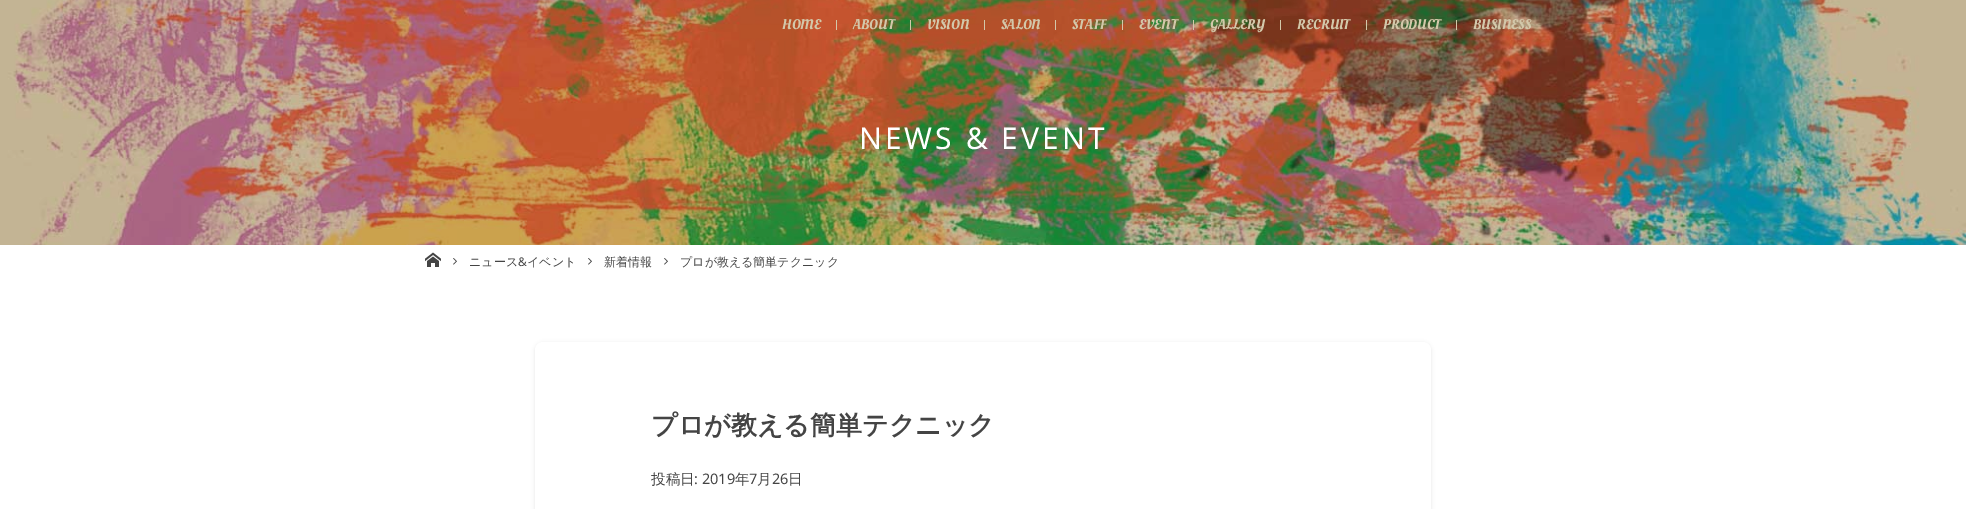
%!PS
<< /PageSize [1966 509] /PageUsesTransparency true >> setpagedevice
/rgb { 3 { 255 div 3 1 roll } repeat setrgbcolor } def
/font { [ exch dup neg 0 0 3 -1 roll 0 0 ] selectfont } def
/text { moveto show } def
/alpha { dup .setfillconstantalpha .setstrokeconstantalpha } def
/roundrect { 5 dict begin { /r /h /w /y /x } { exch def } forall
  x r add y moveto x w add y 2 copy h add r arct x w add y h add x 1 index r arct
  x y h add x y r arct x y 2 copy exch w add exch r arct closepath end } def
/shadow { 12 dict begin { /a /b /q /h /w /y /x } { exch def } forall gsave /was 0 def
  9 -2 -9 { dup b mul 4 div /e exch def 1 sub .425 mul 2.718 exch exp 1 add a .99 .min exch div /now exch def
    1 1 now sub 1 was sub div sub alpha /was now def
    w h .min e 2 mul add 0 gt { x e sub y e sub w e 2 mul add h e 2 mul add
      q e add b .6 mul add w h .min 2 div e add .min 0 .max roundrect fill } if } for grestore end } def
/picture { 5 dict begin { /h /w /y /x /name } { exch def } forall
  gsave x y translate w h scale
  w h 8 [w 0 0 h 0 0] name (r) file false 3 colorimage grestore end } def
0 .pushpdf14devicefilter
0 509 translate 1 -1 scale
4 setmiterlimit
255 255 255 rgb
0 0 1966 509 rectfill
(img_01.rgb) 0 0 1966 245 picture
211 200 170 rgb
836 20 1 10 rectfill
910 20 1 10 rectfill
984 20 1 10 rectfill
1055 20 1 10 rectfill
1122 20 1 10 rectfill
1193 20 1 10 rectfill
1280 20 1 10 rectfill
1366 20 1 10 rectfill
1456 20 1 10 rectfill
(img_02.rgb) 425 252 16 15 picture
(img_03.rgb) 453 258 4 7 picture
(img_03.rgb) 588 258 4 7 picture
(img_03.rgb) 664 258 4 7 picture
0 0 0 rgb
535 343 896 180 8 2 0.1 shadow
255 255 255 rgb
535 342 896 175 8 roundrect fill
/OleoScript-Regular 14 font
211 200 170 rgb
(HOME) 782 29 text
(ABOUT) 853 29 text
(VISION) 927 29 text
(SALON) 1001 29 text
gsave
1072 13 35 25 rectclip
(STAFF) 1072 29 text
grestore
(EVENT) 1139 29 text
(GALLERY) 1210 29 text
(RECRUIT) 1297 29 text
(PRODUCT) 1383 29 text
(BUSINESS) 1473 29 text
/NotoSans-Regular 30 font
255 255 255 rgb
859 149 moveto 3 0 (NEWS & EVENT) ashow
/WenQuanYiZenHei-Medium 12 font
68 68 68 rgb
(ニュース) 469 266 text
/NotoSans-Regular 12 font
(&) 518 266 text
/WenQuanYiZenHei-Medium 12 font
(イベント) 527 266 text
(新着情報) 604 266 text
(プロが教える簡単テクニック) 680 266 text
/WenQuanYiZenHei-Bold 26 font
(プロが教える簡単テクニック) 651 434 text
/WenQuanYiZenHei-Medium 14.5 font
(投稿日) 651 484 text
/NotoSans-Regular 14.5 font
(: 2019) 694 484 text
/WenQuanYiZenHei-Medium 14.5 font
(年) 735 484 text
/NotoSans-Regular 14.5 font
(7) 749 484 text
/WenQuanYiZenHei-Medium 14.5 font
(月) 757 484 text
/NotoSans-Regular 14.5 font
(26) 772 484 text
/WenQuanYiZenHei-Medium 14.5 font
(日) 788 484 text
.poppdf14devicefilter showpage
